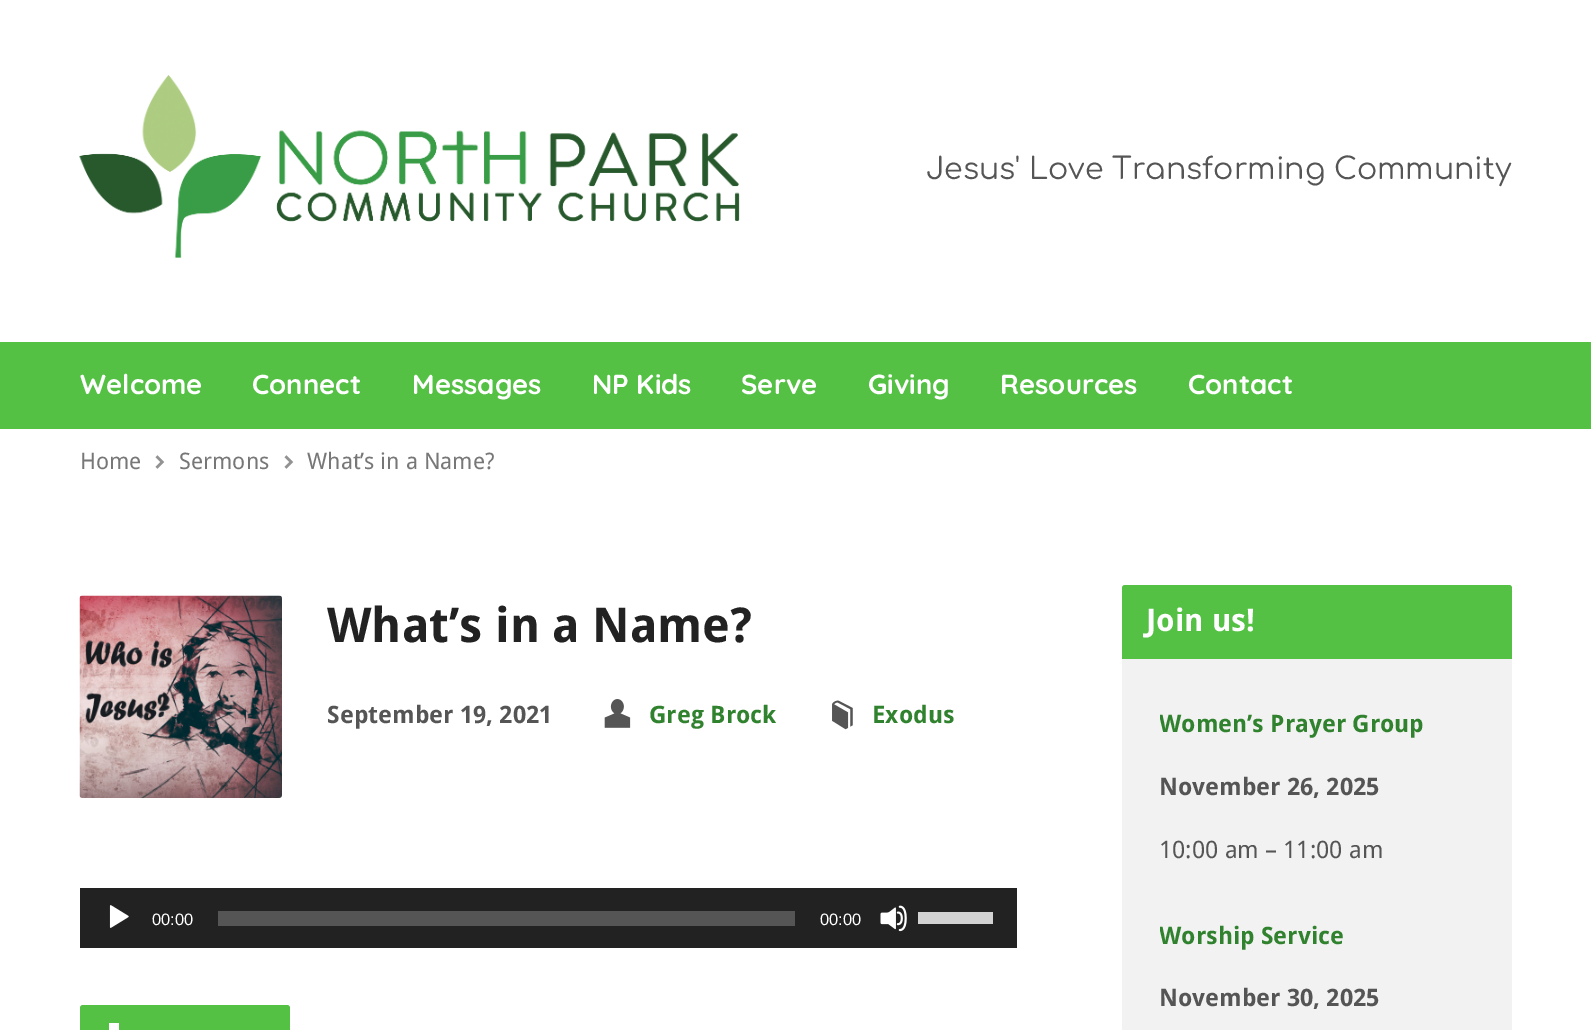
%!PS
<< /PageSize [1591 1030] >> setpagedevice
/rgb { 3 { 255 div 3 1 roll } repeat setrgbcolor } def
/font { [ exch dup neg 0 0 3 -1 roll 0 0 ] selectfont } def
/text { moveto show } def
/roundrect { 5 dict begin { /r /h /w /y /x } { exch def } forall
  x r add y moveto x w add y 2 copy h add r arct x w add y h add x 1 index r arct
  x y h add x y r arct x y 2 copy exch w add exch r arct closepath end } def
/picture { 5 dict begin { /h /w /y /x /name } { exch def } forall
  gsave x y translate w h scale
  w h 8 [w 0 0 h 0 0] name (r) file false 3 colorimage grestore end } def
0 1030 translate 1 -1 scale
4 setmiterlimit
255 255 255 rgb
0 0 1591 1030 rectfill
(img_01.rgb) 79 75 661 183 picture
84 193 69 rgb
0 342 1591 87 rectfill
(img_02.rgb) 155 455 10 14 picture
(img_02.rgb) 284 455 10 14 picture
(img_03.rgb) 79 595 203 203 picture
(img_04.rgb) 604 699 27 29 picture
(img_05.rgb) 832 700 21 30 picture
34 34 34 rgb
80 888 937 60 rectfill
(img_06.rgb) 109 905 20 23 picture
85 85 85 rgb
218 911 577 15 rectfill
(img_07.rgb) 880 905 27 27 picture
210 210 210 rgb
918 912 75 12 rectfill
84 193 69 rgb
80 1005 210 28 3 roundrect fill
255 255 255 rgb
109 1023 10 7 rectfill
242 242 242 rgb
1122 585 390 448 3 roundrect fill
84 193 69 rgb
1125 585 moveto 384 0 rlineto 1.5 0 3 1.5 3 3 rcurveto 0 71 rlineto -390 0 rlineto 0 -71 rlineto 0 -1.5 1.5 -3 3 -3 rcurveto closepath fill
/Comfortaa-Regular 30 font
85 85 85 rgb
(Jesus' Love Transforming Community) 926 179 text
/Quicksand-Bold 27.5 font
255 255 255 rgb
(Welcome) 80 394 text
(Connect) 252 394 text
(Messages) 412 394 text
(NP Kids) 592 394 text
(Serve) 741 394 text
(Giving) 868 394 text
(Resources) 1000 394 text
(Contact) 1188 394 text
/DroidSans-Regular 22.75 font
119 119 119 rgb
(Home) 80 469 text
(Sermons) 179 469 text
(What’s in a Name?) 307 469 text
/DroidSans-Bold 48 font
34 34 34 rgb
(What’s in a Name?) 327 642 text
/DroidSans-Bold 24 font
85 85 85 rgb
(September 19, 2021) 327 723 text
49 130 46 rgb
(Greg Brock) 649 723 text
(Exodus) 872 723 text
/LiberationSans-Regular 16.5 font
255 255 255 rgb
(00:00) 152 925 text
(00:00) 820 925 text
/DroidSans-Bold 31 font
(Join us!) 1146 631 text
gsave
1160 704 315 166 rectclip
/DroidSans-Bold 24 font
49 130 46 rgb
(Women’s Prayer Group) 1159 732 text
grestore
/DroidSans-Bold 24 font
85 85 85 rgb
(November 26, 2025) 1159 795 text
/DroidSans-Regular 24 font
(10:00 am – 11:00 am) 1159 858 text
gsave
1160 915 315 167 rectclip
/DroidSans-Bold 24 font
49 130 46 rgb
(Worship Service) 1159 944 text
grestore
/DroidSans-Bold 24 font
(November 30, 2025) 1159 1006 text
showpage
